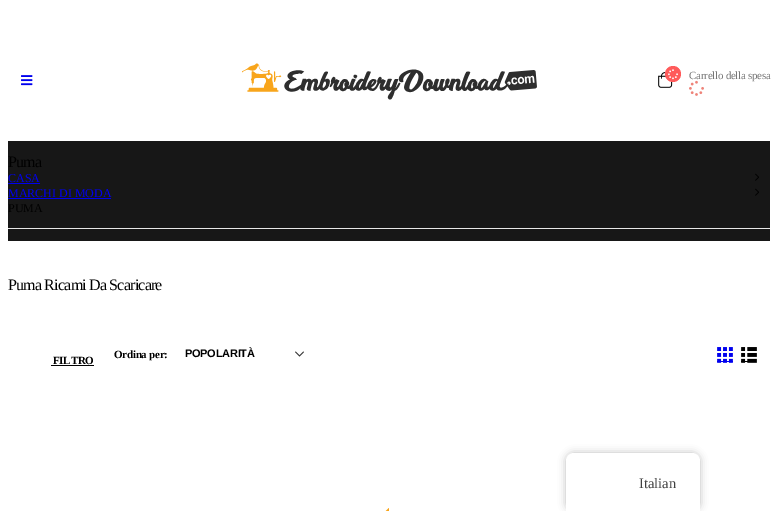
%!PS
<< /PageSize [778 511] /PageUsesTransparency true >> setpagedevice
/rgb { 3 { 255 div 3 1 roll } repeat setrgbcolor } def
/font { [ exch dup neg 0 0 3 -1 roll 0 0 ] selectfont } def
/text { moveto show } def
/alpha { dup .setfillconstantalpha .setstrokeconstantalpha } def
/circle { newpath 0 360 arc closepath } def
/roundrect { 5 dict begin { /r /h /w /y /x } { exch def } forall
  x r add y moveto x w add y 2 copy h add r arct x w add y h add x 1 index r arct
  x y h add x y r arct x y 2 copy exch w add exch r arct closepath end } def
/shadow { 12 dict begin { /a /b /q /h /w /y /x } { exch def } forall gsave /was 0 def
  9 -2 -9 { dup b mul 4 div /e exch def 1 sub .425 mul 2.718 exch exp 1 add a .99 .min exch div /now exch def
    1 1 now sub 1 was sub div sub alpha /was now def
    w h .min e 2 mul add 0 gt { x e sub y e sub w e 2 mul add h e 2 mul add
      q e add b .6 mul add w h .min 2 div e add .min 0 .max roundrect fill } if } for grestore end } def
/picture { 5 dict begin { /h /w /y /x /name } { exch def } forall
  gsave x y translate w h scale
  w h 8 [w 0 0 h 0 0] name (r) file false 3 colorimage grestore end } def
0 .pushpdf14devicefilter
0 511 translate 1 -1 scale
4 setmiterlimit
255 255 255 rgb
0 0 778 511 rectfill
(img_01.rgb) 21 75 12 11 picture
(img_02.rgb) 242 63 295 37 picture
(img_04.rgb) 658 72 15 16 picture
255 91 91 rgb
673 74 8 circle fill
(img_03.rgb) 668 69 10 11 picture
23 23 23 rgb
8 141 762 100 rectfill
0 0 238 rgb
8 183 32 1 rectfill
(img_06.rgb) 755 173 4 8 picture
8 198 103 1 rectfill
(img_06.rgb) 755 188 4 8 picture
231 231 231 rgb
8 228 762 1 rectfill
0 0 0 rgb
51 365 43 1 rectfill
(img_07.rgb) 295 351 9 6 picture
0 0 238 rgb
717 361 16 1 rectfill
(img_08.rgb) 717 347 16 16 picture
0 0 0 rgb
741 361 15 1 rectfill
(img_09.rgb) 741 347 16 16 picture
248 165 27 rgb
389 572 moveto -65 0 rlineto 65 -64 rlineto closepath fill
0 0 0 rgb
566 453 134 58 8 4 0.25 shadow
255 255 255 rgb
574 453 moveto 118 0 rlineto 4.5 0 8 3.5 8 8 rcurveto 0 50 rlineto -134 0 rlineto 0 -50 rlineto 0 -4.5 3.5 -8 8 -8 rcurveto closepath fill
/LiberationSerif-Regular 11 font
119 119 119 rgb
689 79 moveto -0.25 0 (Carrello della spesa) ashow
(img_05.rgb) 689 80 15 16 picture
/LiberationSerif-Regular 16 font
0 0 0 rgb
8 167 moveto -0.8 0 (Puma) ashow
/LiberationSerif-Regular 12 font
0 0 238 rgb
(CASA) 8 182 text
(MARCHI DI MODA) 8 197 text
0 0 0 rgb
(PUMA) 8 212 text
/LiberationSerif-Regular 16 font
8 290 moveto -0.8 0 (Puma Ricami Da Scaricare) ashow
/LiberationSerif-Bold 11 font
53 364 moveto -0.25 0 (FILTRO) ashow
114 358 moveto -0.25 0 (Ordina per:) ashow
/LiberationSans-Bold 11 font
185 357 moveto -0.25 0 (POPOLARITÀ) ashow
/LiberationSerif-Regular 14.5 font
64 64 64 rgb
(Italian) 639 488 text
.poppdf14devicefilter showpage
